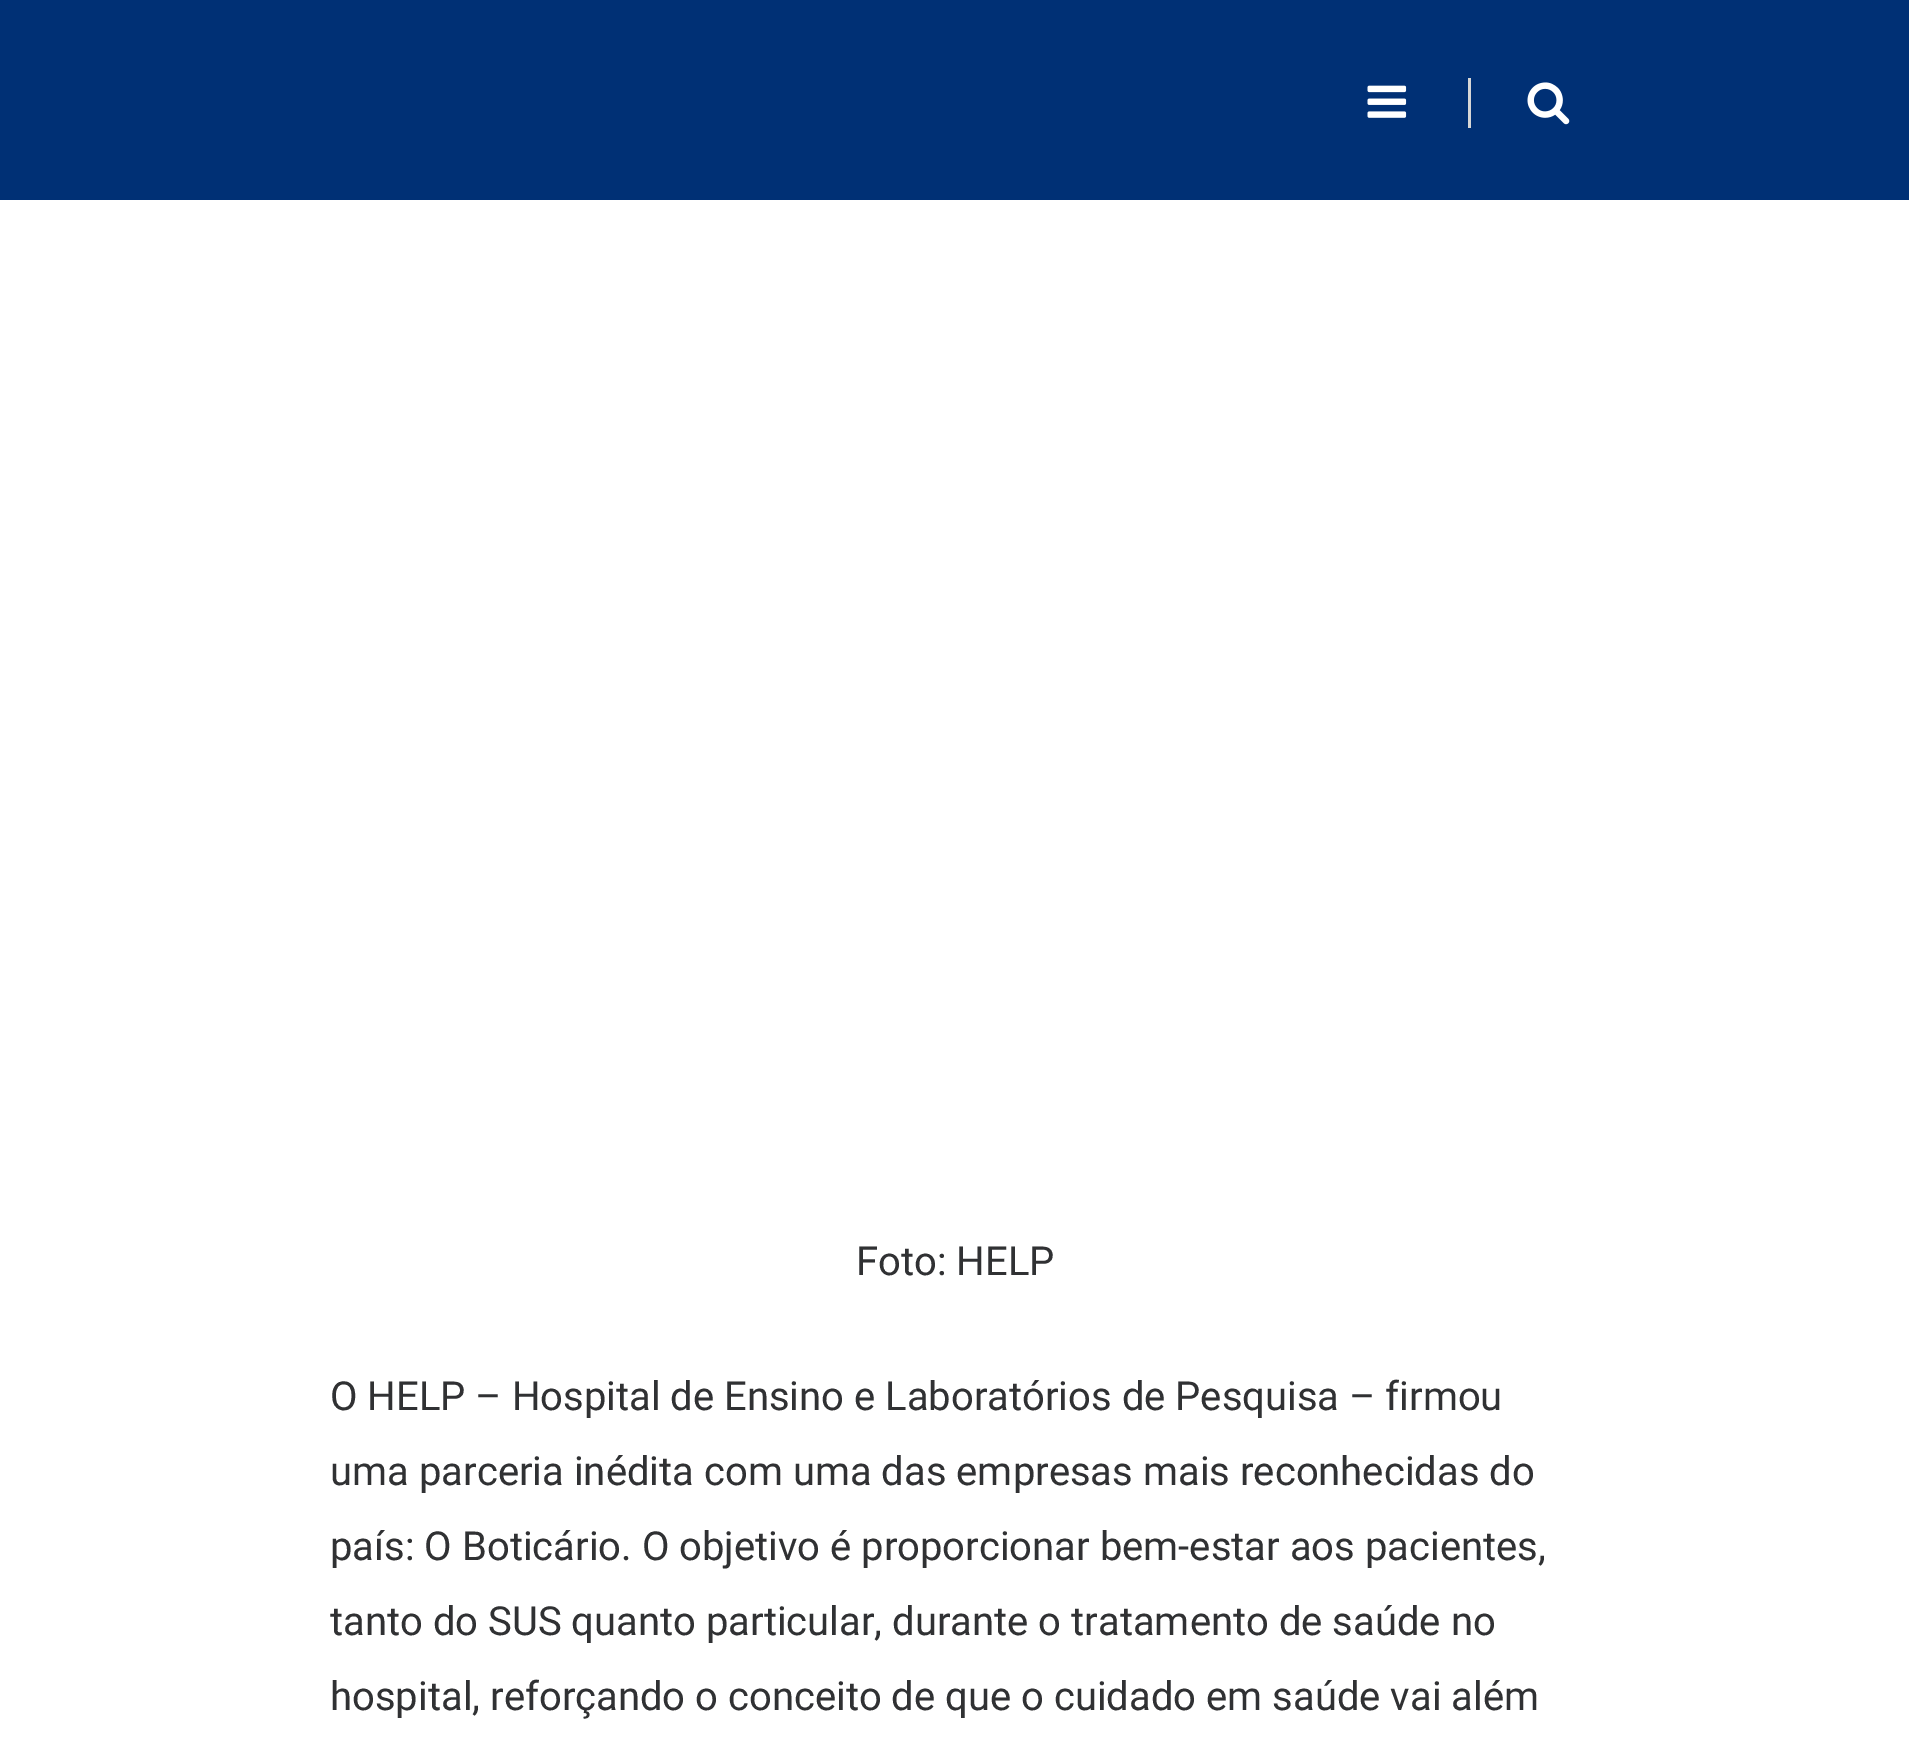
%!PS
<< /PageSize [1909 1744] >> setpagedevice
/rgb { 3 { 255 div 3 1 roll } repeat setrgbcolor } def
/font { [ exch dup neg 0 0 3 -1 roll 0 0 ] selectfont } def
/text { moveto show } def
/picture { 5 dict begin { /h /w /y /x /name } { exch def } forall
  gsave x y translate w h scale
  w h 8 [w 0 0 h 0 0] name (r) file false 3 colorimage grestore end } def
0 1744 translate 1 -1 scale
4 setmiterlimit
255 255 255 rgb
0 0 1909 1744 rectfill
0 48 117 rgb
0 0 1909 200 rectfill
(img_01.rgb) 1367 85 40 33 picture
214 214 214 rgb
1468 78 3 50 rectfill
(img_02.rgb) 1527 82 43 43 picture
/Roboto-Regular 40 font
48 49 51 rgb
(Foto: HELP) 856 1275 text
(O HELP – Hospital de Ensino e Laboratórios de Pesquisa – firmou) 330 1410 text
(uma parceria inédita com uma das empresas mais reconhecidas do) 330 1485 text
(país: O Boticário. O objetivo é proporcionar bem-estar aos pacientes,) 330 1560 text
(tanto do SUS quanto particular, durante o tratamento de saúde no) 330 1635 text
(hospital, reforçando o conceito de que o cuidado em saúde vai além) 330 1710 text
showpage
